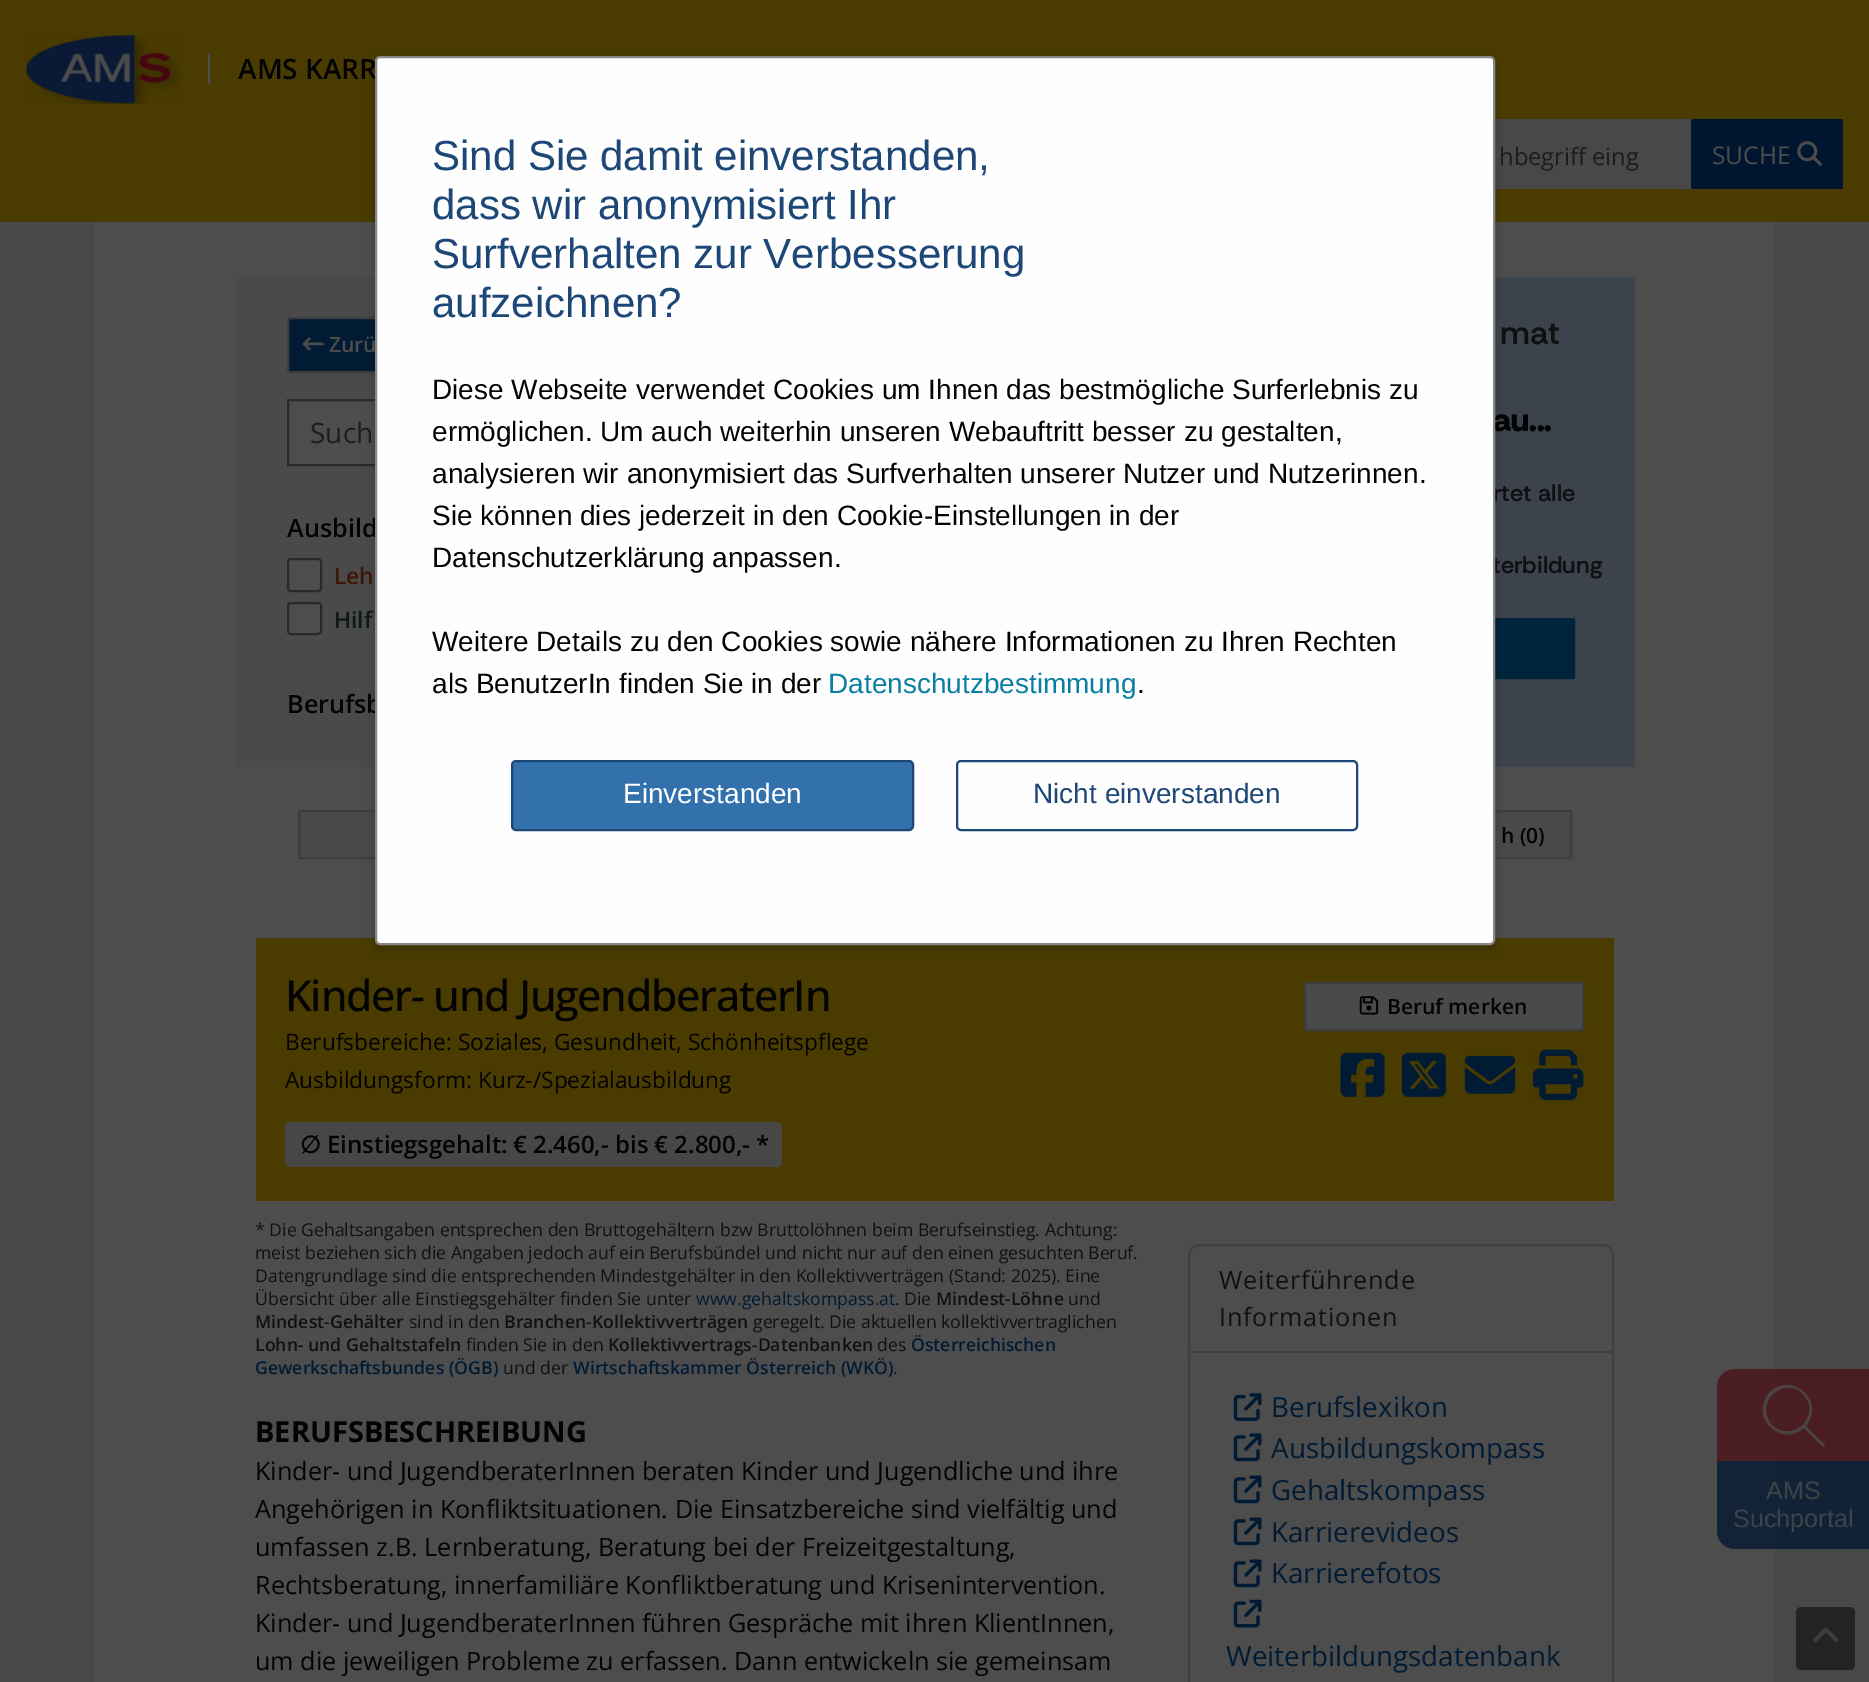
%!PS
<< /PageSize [1869 1682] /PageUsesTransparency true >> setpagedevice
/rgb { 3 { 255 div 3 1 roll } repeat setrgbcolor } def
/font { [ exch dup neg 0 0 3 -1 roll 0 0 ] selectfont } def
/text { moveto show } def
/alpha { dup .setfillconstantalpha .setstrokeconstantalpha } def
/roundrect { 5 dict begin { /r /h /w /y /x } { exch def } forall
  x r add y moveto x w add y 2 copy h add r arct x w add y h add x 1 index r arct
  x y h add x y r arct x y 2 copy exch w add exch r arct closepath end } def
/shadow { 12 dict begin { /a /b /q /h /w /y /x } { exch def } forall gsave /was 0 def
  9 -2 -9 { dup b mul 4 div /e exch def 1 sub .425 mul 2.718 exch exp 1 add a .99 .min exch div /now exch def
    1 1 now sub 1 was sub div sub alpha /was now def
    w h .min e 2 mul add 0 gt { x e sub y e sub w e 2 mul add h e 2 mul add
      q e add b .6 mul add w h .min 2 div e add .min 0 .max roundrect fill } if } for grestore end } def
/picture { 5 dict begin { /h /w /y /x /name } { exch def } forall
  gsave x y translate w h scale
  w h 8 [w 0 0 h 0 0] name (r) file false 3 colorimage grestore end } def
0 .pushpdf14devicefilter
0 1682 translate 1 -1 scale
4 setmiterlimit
71 72 72 rgb
0 0 1869 1682 rectfill
74 59 0 rgb
0 0 1869 222 rectfill
(img_01.rgb) 26 35 157 69 picture
77 77 77 rgb
208 53 2 31 rectfill
72 72 72 rgb
1495 119 196 70 rectfill
0 22 48 rgb
1691 119 152 70 2 roundrect fill
(img_02.rgb) 1797 141 25 25 picture
77 77 77 rgb
95 222 1680 1460 rectfill
74 74 74 rgb
235 277 140 490 rectfill
0 27 51 rgb
288 318 268 54 1 roundrect gsave fill grestore
61 61 61 rgb
2 setlinewidth
stroke
77 77 77 rgb
289 401 86 63 rectfill
41 41 41 rgb
288 400 597 65 rectstroke
60 67 76 rgb
1495 277 140 490 rectfill
0 36 59 rgb
1275 619 299 59 1 roundrect gsave fill grestore
stroke
74 74 74 rgb
299 811 337 47 1 roundrect gsave fill grestore
61 61 61 rgb
stroke
74 74 74 rgb
1233 811 338 47 1 roundrect gsave fill grestore
61 61 61 rgb
stroke
74 59 0 rgb
256 938 1358 263 rectfill
0 0 0 rgb
375 60 1120 889 5 4.5 0.2 shadow
(img_03.rgb) 302 337 22 14 picture
77 77 77 rgb
288 559 33 32 3 roundrect gsave fill grestore
41 41 41 rgb
stroke
77 77 77 rgb
288 603 33 31 3 roundrect gsave fill grestore
41 41 41 rgb
stroke
71 71 71 rgb
285 1122 497 45 5 roundrect fill
74 74 74 rgb
1305 983 278 47 1 roundrect gsave fill grestore
61 61 61 rgb
stroke
(img_04.rgb) 1359 996 20 19 picture
(img_05.rgb) 1340 1052 45 45 picture
(img_06.rgb) 1401 1052 45 45 picture
(img_07.rgb) 1464 1055 52 39 picture
(img_08.rgb) 1533 1049 51 52 picture
63 63 63 rgb
1189 1245 424 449 10 roundrect stroke
62 62 62 rgb
1190 1351 422 2 rectfill
(img_09.rgb) 1233 1393 29 28 picture
(img_10.rgb) 1233 1433 29 29 picture
(img_10.rgb) 1233 1475 29 29 picture
(img_10.rgb) 1233 1517 29 29 picture
(img_10.rgb) 1233 1559 29 29 picture
(img_11.rgb) 1233 1599 29 29 picture
0.76 alpha
73 15 22 rgb
1735 1369 moveto 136 0 rlineto 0 92 rlineto -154 0 rlineto 0 -74 rlineto 0 -10 8 -18 18 -18 rcurveto closepath fill
77 77 77 rgb
1824 1444 moveto -18 -18 rlineto 4 -5 6 -11 6 -17 rcurveto -1 -21 -27 -32 -42 -17 rcurveto -22 25 11 56 34 36 rcurveto 2 2 18 19 20 19 rcurveto 1 -1 1 -2 0 -3 rcurveto closepath 1772 1425 moveto -4 -4 -6 -10 -6 -15 rcurveto 0 -19 24 -30 37 -16 rcurveto 20 22 -11 50 -31 31 rcurveto closepath fill
0 22 48 rgb
1717 1461 moveto 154 0 rlineto 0 88 rlineto -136 0 rlineto -10 0 -18 -8 -18 -18 rcurveto closepath fill
1 alpha
34 35 35 rgb
1796 1607 59 63 5 roundrect fill
(img_12.rgb) 1813 1627 26 16 picture
/OpenSans-SemiBold 28 font
3 3 3 rgb
(AMS KARR) 238 79 text
/OpenSans-Regular 23.75 font
27 28 29 rgb
(hbegriff eing) 1499 165 text
/OpenSans-Regular 24.5 font
77 77 77 rgb
(SUCHE) 1712 164 text
/OpenSans-SemiBold 21 font
(Zurü) 329 352 text
/OpenSans-Regular 28 font
27 28 29 rgb
(Such) 310 443 text
/OpenSans-SemiBold 25.2 font
3 3 3 rgb
(Ausbild) 287 537 text
/OpenSans-SemiBold 22.7 font
58 23 8 rgb
(Leh) 334 584 text
12 27 17 rgb
(Hilf) 334 628 text
/OpenSans-SemiBold 25.2 font
3 3 3 rgb
(Berufsb) 287 713 text
/RethinkSans-Thin 33 font
14 16 17 rgb
(mat) 1500 344 text
/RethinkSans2-Thin 33 font
3 3 3 rgb
(au...) 1493 431 text
/RethinkSans-Thin 24 font
14 16 17 rgb
(rtet alle) 1493 501 text
(terbildung) 1492 573 text
254 254 254 rgb
376 57 1118 887 4 roundrect gsave fill grestore
136 136 136 rgb
stroke
/LiberationSans-Regular 28 font
3 3 3 rgb
(.) 1137 693 text
9 126 165 rgb
(Datenschutzbestimmung) 828 693 text
3 3 3 rgb
(als BenutzerIn finden Sie in der) 432 693 text
(Weitere Details zu den Cookies sowie nähere Informationen zu Ihren Rechten) 432 651 text
(Datenschutzerklärung anpassen.) 432 567 text
(Sie können dies jederzeit in den Cookie-Einstellungen in der) 432 525 text
(analysieren wir anonymisiert das Surfverhalten unserer Nutzer und Nutzerinnen.) 432 483 text
(ermöglichen. Um auch weiterhin unseren Webauftritt besser zu gestalten,) 432 441 text
(Diese Webseite verwendet Cookies um Ihnen das bestmögliche Surferlebnis zu) 432 399 text
29 71 119 rgb
957 761 400 69 4 roundrect stroke
(Nicht einverstanden) 1033 803 text
51 113 173 rgb
512 761 401 69 4 roundrect gsave fill grestore
29 71 119 rgb
stroke
255 255 255 rgb
(Einverstanden) 623 803 text
/LiberationSans-Regular 42 font
29 71 119 rgb
(aufzeichnen?) 432 317 text
(Surfverhalten zur Verbesserung) 432 268 text
(dass wir anonymisiert Ihr) 432 219 text
(Sind Sie damit einverstanden,) 432 170 text
/OpenSans-SemiBold 21 font
3 3 3 rgb
(h \(0\)) 1501 843 text
/OpenSans-Medium 42.8 font
285 1011 moveto -1.3 0 (Kinder- und JugendberaterIn) ashow
/OpenSans-Regular 22.7 font
(Berufsbereiche: Soziales, Gesundheit, Schönheitspflege) 285 1050 text
(Ausbildungsform: Kurz-/Spezialausbildung) 285 1088 text
/DejaVuSans-Bold 24 font
(∅) 300 1153 text
/OpenSans-SemiBold 24 font
(Einstiegsgehalt:) 327 1153 text
(€ 2.460,- bis € 2.800,- *) 513 1153 text
/OpenSans-SemiBold 21 font
(Beruf merken) 1387 1014 text
/OpenSans-Regular 17.65 font
14 16 17 rgb
(* Die Gehaltsangaben entsprechen den Bruttogehältern bzw Bruttolöhnen beim Berufseinstieg. Achtung:) 255 1236 text
(meist beziehen sich die Angaben jedoch auf ein Berufsbündel und nicht nur auf den einen gesuchten Beruf.) 255 1259 text
(Datengrundlage sind die entsprechenden Mindestgehälter in den Kollektivverträgen \(Stand: 2025\). Eine) 255 1282 text
(Übersicht über alle Einstiegsgehälter finden Sie unter) 255 1305 text
0 27 51 rgb
(www.gehaltskompass.at) 696 1305 text
14 16 17 rgb
(. Die) 895 1305 text
/OpenSans-SemiBold 17.65 font
(Mindest-Löhne) 936 1305 text
/OpenSans-Regular 17.65 font
(und) 1068 1305 text
/OpenSans-SemiBold 17.65 font
(Mindest-Gehälter) 255 1328 text
/OpenSans-Regular 17.65 font
(sind in den) 409 1328 text
/OpenSans-SemiBold 17.65 font
(Branchen-Kollektivverträgen) 504 1328 text
/OpenSans-Regular 17.65 font
(geregelt. Die aktuellen kollektivvertraglichen) 753 1328 text
/OpenSans-SemiBold 17.65 font
(Lohn- und Gehaltstafeln) 255 1351 text
/OpenSans-Regular 17.65 font
(finden Sie in den) 466 1351 text
/OpenSans-SemiBold 17.65 font
(Kollektivvertrags-Datenbanken) 608 1351 text
/OpenSans-Regular 17.65 font
(des) 877 1351 text
/OpenSans-SemiBold 17.65 font
0 27 51 rgb
(Österreichischen) 911 1351 text
(Gewerkschaftsbundes \(ÖGB\)) 255 1374 text
/OpenSans-Regular 17.65 font
14 16 17 rgb
(und der) 503 1374 text
/OpenSans-SemiBold 17.65 font
0 27 51 rgb
(Wirtschaftskammer Österreich \(WKÖ\)) 573 1374 text
/OpenSans-Regular 17.65 font
14 16 17 rgb
(.) 893 1374 text
/OpenSans-Bold 29 font
3 3 3 rgb
(BERUFSBESCHREIBUNG) 255 1442 text
/OpenSans-Regular 25.2 font
(Kinder- und JugendberaterInnen beraten Kinder und Jugendliche und ihre) 255 1480 text
(Angehörigen in Konfliktsituationen. Die Einsatzbereiche sind vielfältig und) 255 1518 text
(umfassen z.B. Lernberatung, Beratung bei der Freizeitgestaltung,) 255 1556 text
(Rechtsberatung, innerfamiliäre Konfliktberatung und Krisenintervention.) 255 1594 text
(Kinder- und JugendberaterInnen führen Gespräche mit ihren KlientInnen,) 255 1632 text
(um die jeweiligen Probleme zu erfassen. Dann entwickeln sie gemeinsam) 255 1670 text
14 16 17 rgb
1219 1289 moveto 0.75 0 (Weiterführende) ashow
1219 1326 moveto 0.75 0 (Informationen) ashow
/OpenSans-Regular 27.75 font
0 27 51 rgb
(Berufslexikon) 1271 1417 text
(Ausbildungskompass) 1271 1458 text
(Gehaltskompass) 1271 1500 text
(Karrierevideos) 1271 1542 text
(Karrierefotos) 1271 1583 text
(Weiterbildungsdatenbank) 1226 1666 text
/LiberationSans-Regular 25.2 font
62 67 71 rgb
(AMS) 1766 1499 text
(Suchportal) 1733 1527 text
.poppdf14devicefilter showpage
